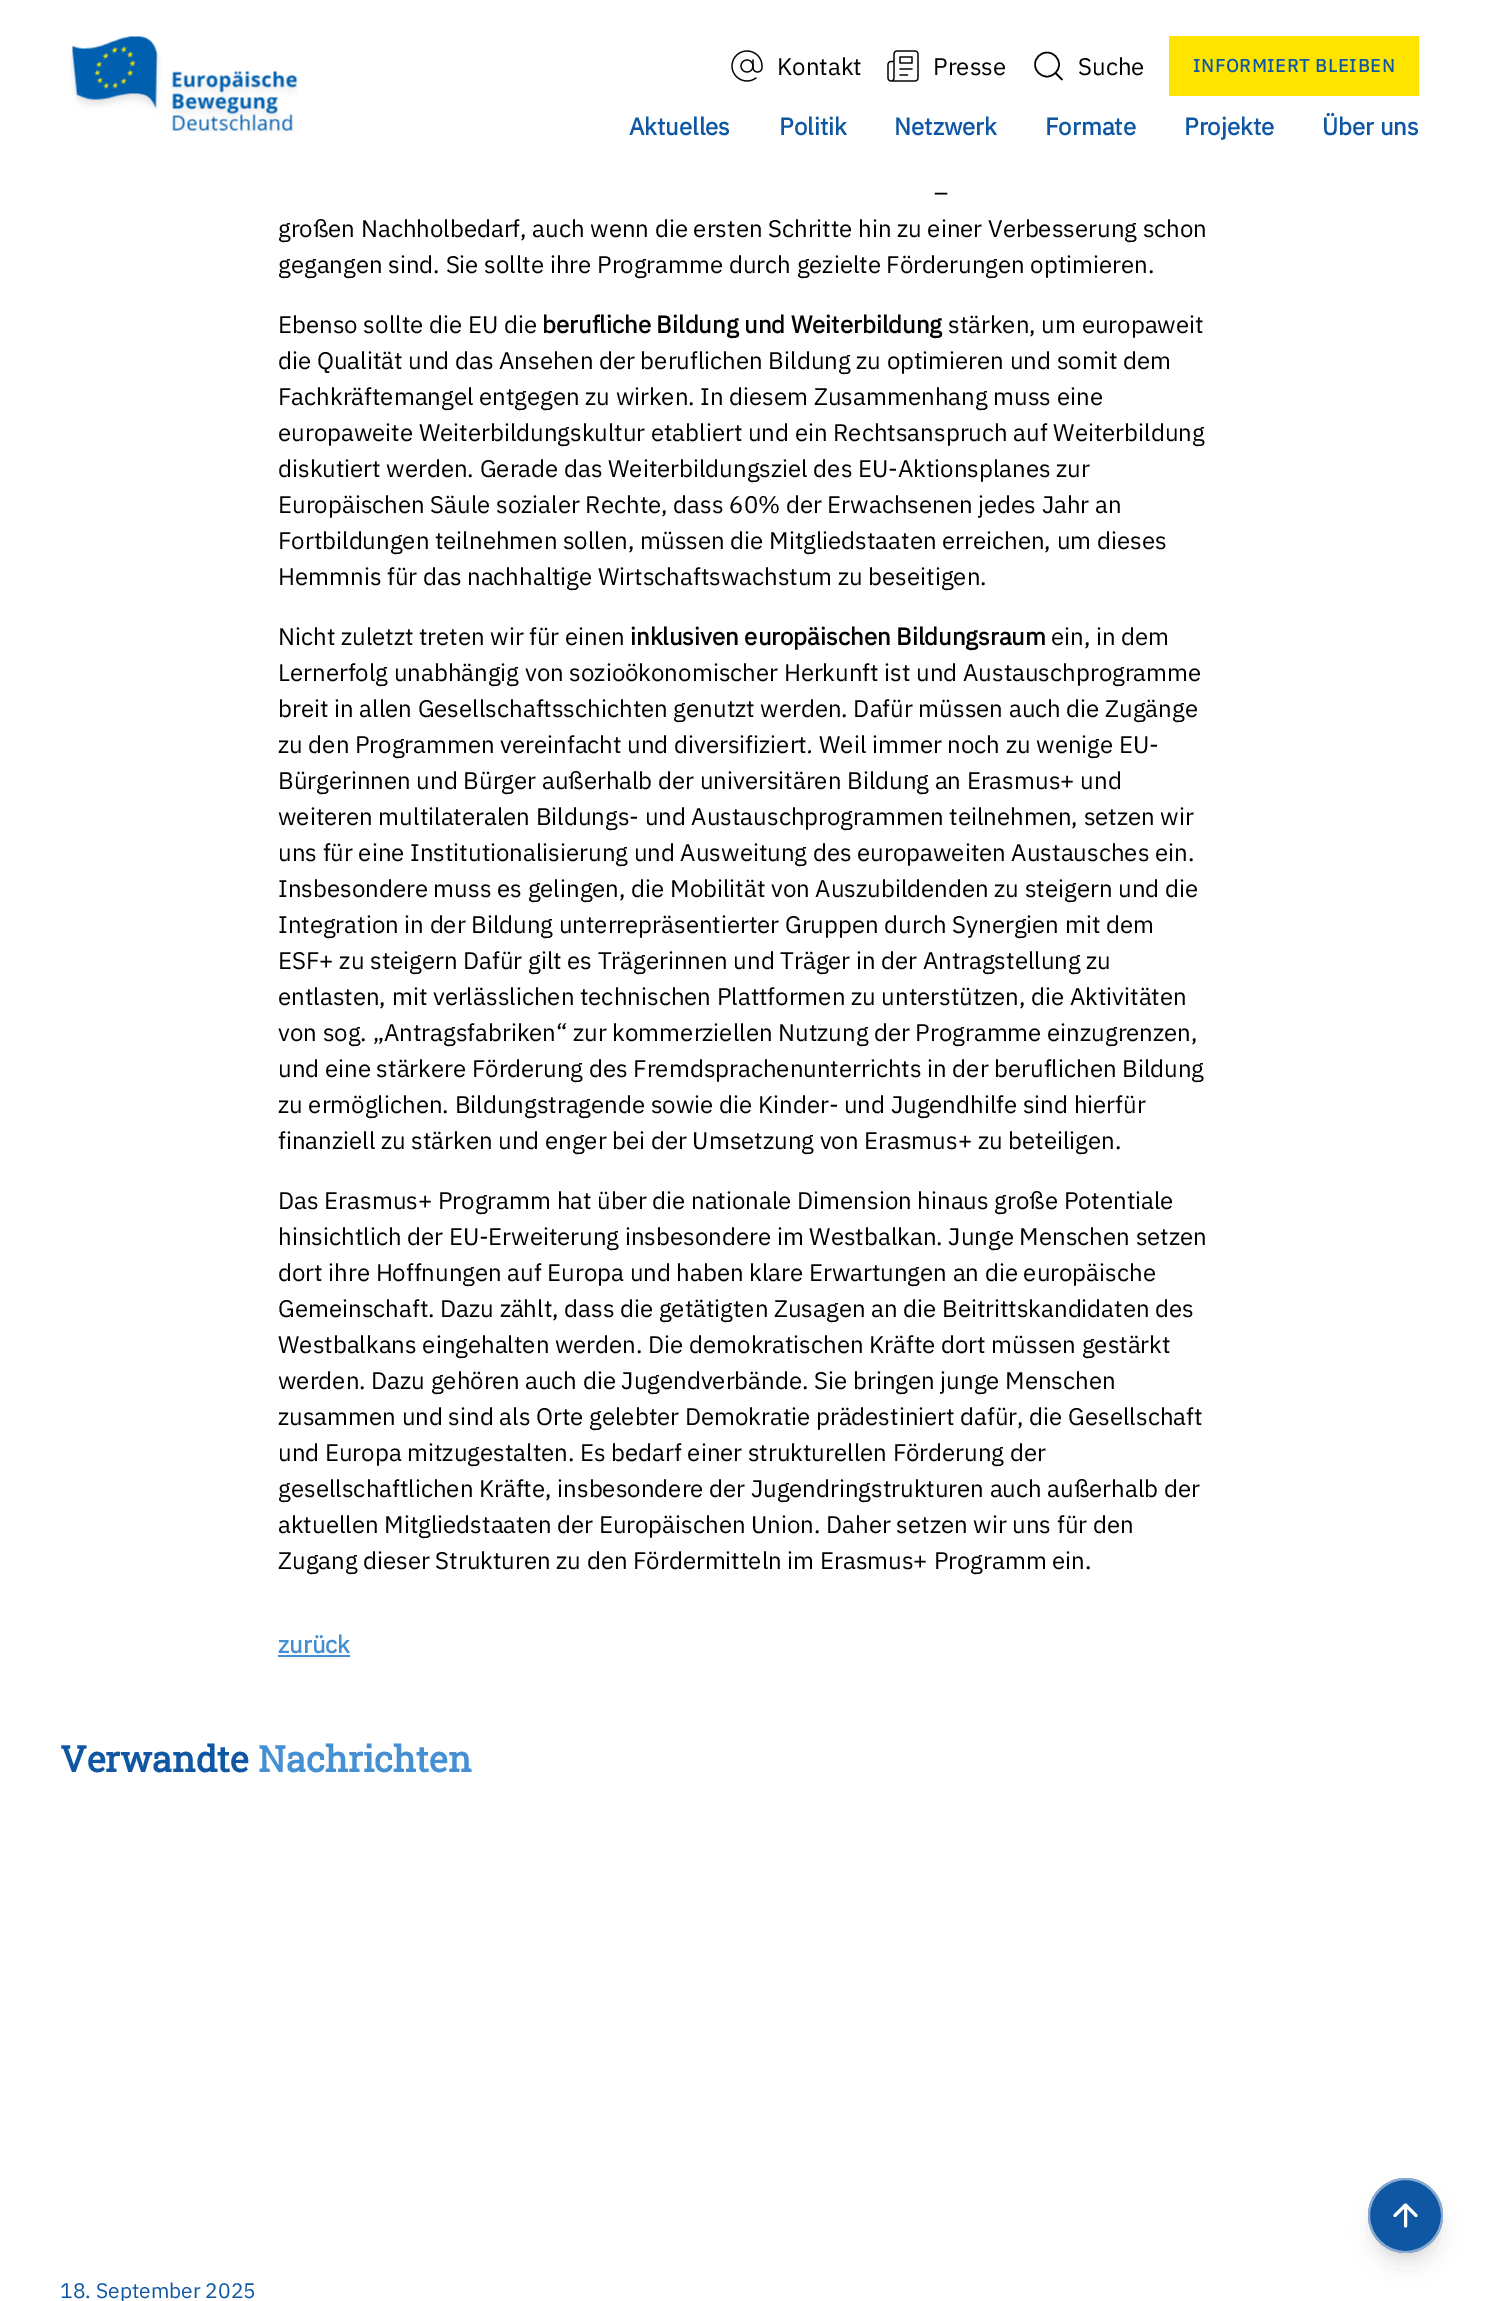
%!PS
<< /PageSize [1491 2301] /PageUsesTransparency true >> setpagedevice
/rgb { 3 { 255 div 3 1 roll } repeat setrgbcolor } def
/font { [ exch dup neg 0 0 3 -1 roll 0 0 ] selectfont } def
/text { moveto show } def
/alpha { dup .setfillconstantalpha .setstrokeconstantalpha } def
/circle { newpath 0 360 arc closepath } def
/roundrect { 5 dict begin { /r /h /w /y /x } { exch def } forall
  x r add y moveto x w add y 2 copy h add r arct x w add y h add x 1 index r arct
  x y h add x y r arct x y 2 copy exch w add exch r arct closepath end } def
/shadow { 12 dict begin { /a /b /q /h /w /y /x } { exch def } forall gsave /was 0 def
  9 -2 -9 { dup b mul 4 div /e exch def 1 sub .425 mul 2.718 exch exp 1 add a .99 .min exch div /now exch def
    1 1 now sub 1 was sub div sub alpha /was now def
    w h .min e 2 mul add 0 gt { x e sub y e sub w e 2 mul add h e 2 mul add
      q e add b .6 mul add w h .min 2 div e add .min 0 .max roundrect fill } if } for grestore end } def
/picture { 5 dict begin { /h /w /y /x /name } { exch def } forall
  gsave x y translate w h scale
  w h 8 [w 0 0 h 0 0] name (r) file false 3 colorimage grestore end } def
0 .pushpdf14devicefilter
0 2301 translate 1 -1 scale
4 setmiterlimit
255 255 255 rgb
0 0 1491 2301 rectfill
(img_01.rgb) 70 36 228 96 picture
(img_02.rgb) 731 50 32 32 picture
(img_03.rgb) 887 50 32 32 picture
0 0 0 rgb
1.5 setlinewidth
1047 64.5 12 circle stroke
1 setlinecap
1 setlinejoin
1062 79.5 moveto -6.5 -6.5 rlineto stroke
254 229 0 rgb
1169 36 250 60 rectfill
69 143 211 rgb
278 1655 72 2 rectfill
0 0 0 rgb
1374 2190 63 63 31.5 4.5 0.1 shadow
1373 2198 66 66 33 11 0.1 shadow
16 87 163 rgb
1405.5 2215.5 37.5 circle fill
0.5 alpha
255 255 255 rgb
2 setlinewidth
0 setlinecap
0 setlinejoin
1405.5 2215.5 36.5 circle stroke
1 alpha
3 setlinewidth
1 setlinecap
1 setlinejoin
1395 2215.5 moveto 10.5 -10.5 rlineto 10.5 10.5 rlineto 1405.5 2226 moveto 0 -21 rlineto stroke
/IBMPlexSans-Regular 24 font
0 0 0 rgb
(Kontakt) 777 75 text
(Presse) 933 75 text
(Suche) 1078 75 text
/IBMPlexSans-Bold 18 font
16 87 163 rgb
1193 72 moveto 0.9 0 (INFORMIERT BLEIBEN) ashow
/IBMPlexSans-Bold 24 font
(Aktuelles) 629 135 text
(Politik) 779 135 text
(Netzwerk) 894 135 text
(Formate) 1045 135 text
(Projekte) 1184 135 text
(Über uns) 1322 135 text
/IBMPlexSans-Regular 24 font
0 0 0 rgb
(–) 934 201 text
(großen Nachholbedarf, auch wenn die ersten Schritte hin zu einer Verbesserung schon) 278 237 text
(gegangen sind. Sie sollte ihre Programme durch gezielte Förderungen optimieren.) 278 273 text
(Ebenso sollte die EU die) 278 333 text
/IBMPlexSans-Bold 24 font
(berufliche Bildung und Weiterbildung) 542 333 text
/IBMPlexSans-Regular 24 font
(stärken, um europaweit) 948 333 text
(die Qualität und das Ansehen der beruflichen Bildung zu optimieren und somit dem) 278 369 text
(Fachkräftemangel entgegen zu wirken. In diesem Zusammenhang muss eine) 278 405 text
(europaweite Weiterbildungskultur etabliert und ein Rechtsanspruch auf Weiterbildung) 278 441 text
(diskutiert werden. Gerade das Weiterbildungsziel des EU-Aktionsplanes zur) 278 477 text
(Europäischen Säule sozialer Rechte, dass 60% der Erwachsenen jedes Jahr an) 278 513 text
(Fortbildungen teilnehmen sollen, müssen die Mitgliedstaaten erreichen, um dieses) 278 549 text
(Hemmnis für das nachhaltige Wirtschaftswachstum zu beseitigen.) 278 585 text
(Nicht zuletzt treten wir für einen) 278 645 text
/IBMPlexSans-Bold 24 font
(inklusiven europäischen Bildungsraum) 630 645 text
/IBMPlexSans-Regular 24 font
(ein, in dem) 1051 645 text
(Lernerfolg unabhängig von sozioökonomischer Herkunft ist und Austauschprogramme) 278 681 text
(breit in allen Gesellschaftsschichten genutzt werden. Dafür müssen auch die Zugänge) 278 717 text
(zu den Programmen vereinfacht und diversifiziert) 278 753 text
/IBMPlexSans-Italic 24 font
(.) 806 753 text
/IBMPlexSans-Regular 24 font
(Weil immer noch zu wenige EU-) 819 753 text
(Bürgerinnen und Bürger außerhalb der universitären Bildung an Erasmus+ und) 278 789 text
(weiteren multilateralen Bildungs- und Austauschprogrammen teilnehmen, setzen wir) 278 825 text
(uns für eine Institutionalisierung und Ausweitung des europaweiten Austausches ein.) 278 861 text
(Insbesondere muss es gelingen, die Mobilität von Auszubildenden zu steigern und die) 278 897 text
(Integration in der Bildung unterrepräsentierter Gruppen durch Synergien mit dem) 278 933 text
(ESF+ zu steigern Dafür gilt es Trägerinnen und Träger in der Antragstellung zu) 278 969 text
(entlasten, mit verlässlichen technischen Plattformen zu unterstützen, die Aktivitäten) 278 1005 text
(von sog. „Antragsfabriken“ zur kommerziellen Nutzung der Programme einzugrenzen,) 278 1041 text
(und eine stärkere Förderung des Fremdsprachenunterrichts in der beruflichen Bildung) 278 1077 text
(zu ermöglichen. Bildungstragende sowie die Kinder- und Jugendhilfe sind hierfür) 278 1113 text
(finanziell zu stärken und enger bei der Umsetzung von Erasmus+ zu beteiligen.) 278 1149 text
(Das Erasmus+ Programm hat über die nationale Dimension hinaus große Potentiale) 278 1209 text
(hinsichtlich der EU-Erweiterung insbesondere im Westbalkan. Junge Menschen setzen) 278 1245 text
(dort ihre Hoffnungen auf Europa und haben klare Erwartungen an die europäische) 278 1281 text
(Gemeinschaft. Dazu zählt, dass die getätigten Zusagen an die Beitrittskandidaten des) 278 1317 text
(Westbalkans eingehalten werden. Die demokratischen Kräfte dort müssen gestärkt) 278 1353 text
(werden. Dazu gehören auch die Jugendverbände. Sie bringen junge Menschen) 278 1389 text
(zusammen und sind als Orte gelebter Demokratie prädestiniert dafür, die Gesellschaft) 278 1425 text
(und Europa mitzugestalten. Es bedarf einer strukturellen Förderung der) 278 1461 text
(gesellschaftlichen Kräfte, insbesondere der Jugendringstrukturen auch außerhalb der) 278 1497 text
(aktuellen Mitgliedstaaten der Europäischen Union. Daher setzen wir uns für den) 278 1533 text
(Zugang dieser Strukturen zu den Fördermitteln im Erasmus+ Programm ein.) 278 1569 text
/IBMPlexSans-Bold 24 font
69 143 211 rgb
(zurück) 278 1653 text
/RobotoSlab-Bold 36 font
16 87 163 rgb
(Verwandte) 60 1772 text
69 143 211 rgb
(Nachrichten) 258 1772 text
/IBMPlexSans-Regular 21 font
16 87 163 rgb
(18. September 2025) 60 2298 text
.poppdf14devicefilter showpage
